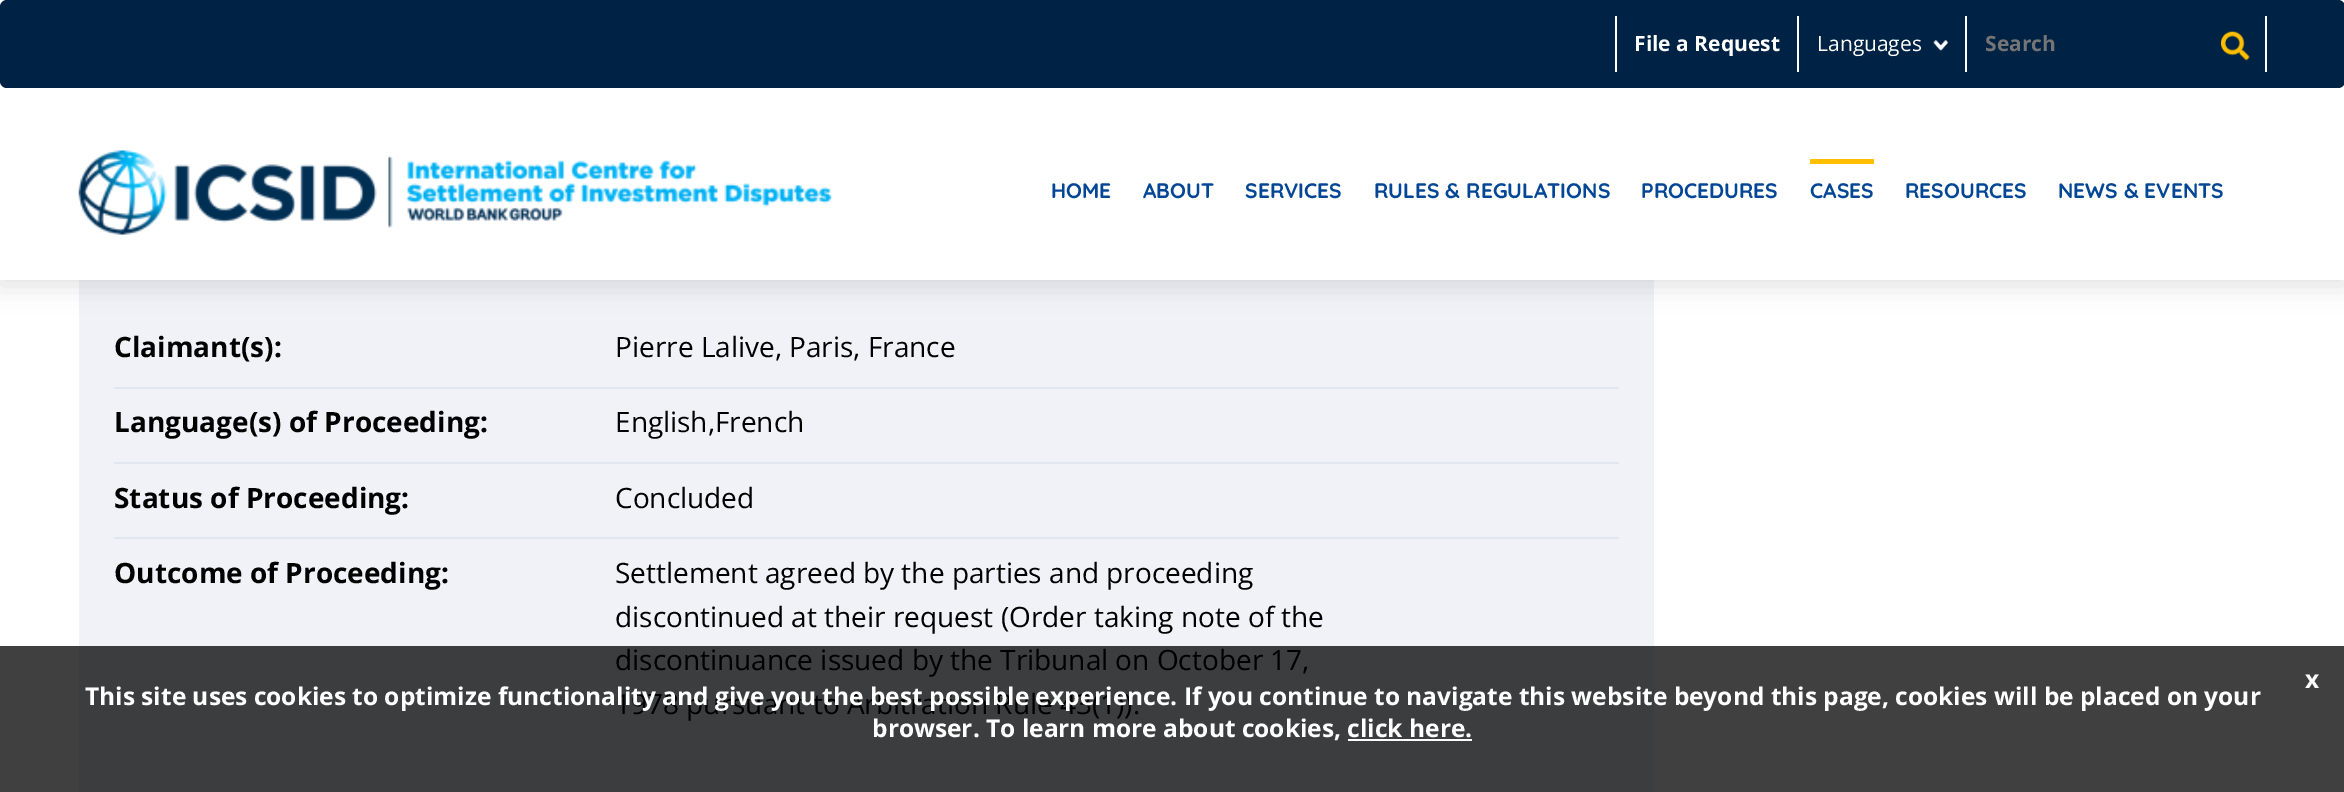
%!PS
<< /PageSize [2344 792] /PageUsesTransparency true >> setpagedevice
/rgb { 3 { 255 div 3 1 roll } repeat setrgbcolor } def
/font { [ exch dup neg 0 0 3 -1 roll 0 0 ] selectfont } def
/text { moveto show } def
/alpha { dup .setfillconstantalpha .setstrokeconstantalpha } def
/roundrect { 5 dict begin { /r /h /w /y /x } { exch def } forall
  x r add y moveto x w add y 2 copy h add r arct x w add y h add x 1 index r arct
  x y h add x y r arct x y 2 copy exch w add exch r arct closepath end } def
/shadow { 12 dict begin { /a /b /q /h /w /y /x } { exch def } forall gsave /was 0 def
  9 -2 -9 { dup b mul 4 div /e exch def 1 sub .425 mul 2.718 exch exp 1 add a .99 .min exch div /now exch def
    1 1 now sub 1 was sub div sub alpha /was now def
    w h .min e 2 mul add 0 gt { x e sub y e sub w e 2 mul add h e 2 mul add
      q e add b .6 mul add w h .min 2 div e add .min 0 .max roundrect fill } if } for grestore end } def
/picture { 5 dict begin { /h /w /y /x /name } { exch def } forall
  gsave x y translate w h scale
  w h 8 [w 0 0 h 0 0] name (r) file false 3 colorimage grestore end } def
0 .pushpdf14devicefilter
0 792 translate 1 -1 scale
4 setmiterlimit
255 255 255 rgb
0 0 2344 792 rectfill
64 64 64 rgb
0 646 2344 146 rectfill
240 242 248 rgb
79 280 1575 366 rectfill
0 0 0 rgb
0 5 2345 280 0 13 0.12 shadow
255 255 255 rgb
0 0 2344 280 rectfill
0 34 68 rgb
0 0 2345 88 7 roundrect fill
255 255 255 rgb
1797 16 2 56 rectfill
1615 16 2 56 rectfill
1965 16 2 56 rectfill
(img_01.rgb) 1933 40 15 11 picture
2265 16 2 56 rectfill
(img_02.rgb) 2221 31 29 30 picture
(img_03.rgb) 78 150 754 85 picture
255 191 0 rgb
1810 159 64 5 rectfill
60 61 62 rgb
79 646 1575 146 rectfill
225 230 239 rgb
114 387 1505 2 rectfill
114 462 1505 2 rectfill
114 537 1505 2 rectfill
255 255 255 rgb
1348 739 124 2 rectfill
/OpenSans-Bold 21 font
(File a Request) 1634 51 text
/OpenSans-Regular 21 font
(Languages) 1817 51 text
/OpenSans-Bold 21 font
117 117 117 rgb
(Search) 1985 51 text
/Quicksand-Bold 21 font
2 70 149 rgb
(HOME) 1051 198 text
(ABOUT) 1143 198 text
(SERVICES) 1245 198 text
(RULES & REGULATIONS) 1374 198 text
(PROCEDURES) 1641 198 text
(CASES) 1810 198 text
(RESOURCES) 1905 198 text
(NEWS & EVENTS) 2058 198 text
/OpenSans-Bold 28 font
0 0 0 rgb
(Claimant\(s\):) 114 357 text
/OpenSans-Regular 28 font
(Pierre Lalive, Paris, France) 615 357 text
/OpenSans-Bold 28 font
(Language\(s\) of Proceeding:) 114 432 text
/OpenSans-Regular 28 font
(English,French) 615 432 text
/OpenSans-Bold 28 font
(Status of Proceeding:) 114 508 text
/OpenSans-Regular 28 font
(Concluded) 615 508 text
/OpenSans-Bold 28 font
(Outcome of Proceeding:) 114 583 text
/OpenSans-Regular 28 font
(Settlement agreed by the parties and proceeding) 615 583 text
(discontinued at their request \(Order taking note of the) 615 627 text
(discontinuance issued by the Tribunal on October 17,) 615 670 text
(1978 pursuant to Arbitration Rule 43\(1\)\).) 615 714 text
/OpenSans-Bold 24.5 font
255 255 255 rgb
(x) 2305 688 text
(This site uses cookies to optimize functionality and give you the best possible experience. If you continue to navigate this website beyond this page, cookies will be placed on your) 85 705 text
(browser. To learn more about cookies, click here.) 872 737 text
.poppdf14devicefilter showpage
